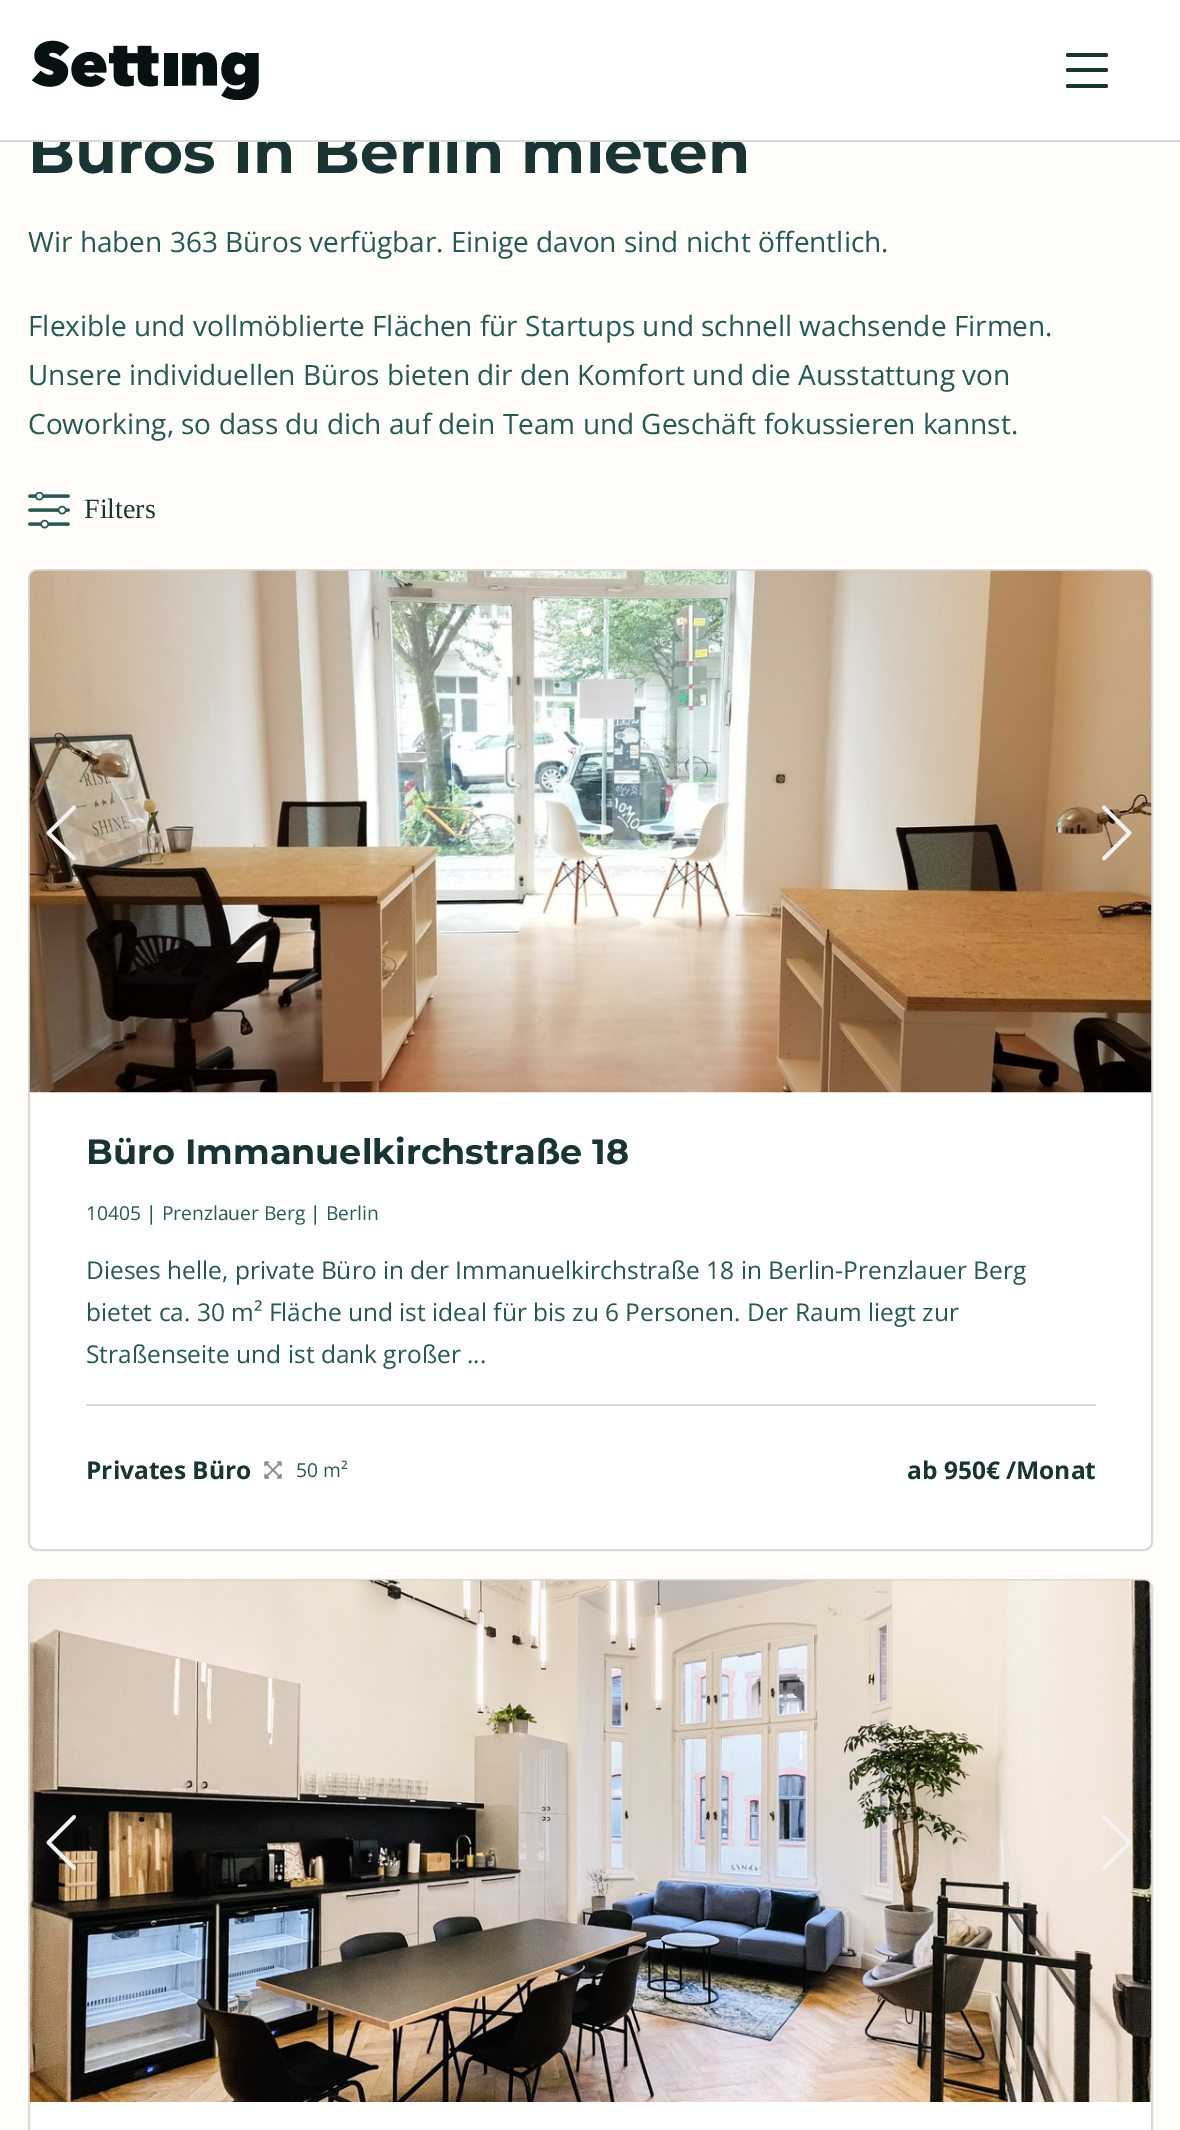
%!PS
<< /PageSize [1180 2130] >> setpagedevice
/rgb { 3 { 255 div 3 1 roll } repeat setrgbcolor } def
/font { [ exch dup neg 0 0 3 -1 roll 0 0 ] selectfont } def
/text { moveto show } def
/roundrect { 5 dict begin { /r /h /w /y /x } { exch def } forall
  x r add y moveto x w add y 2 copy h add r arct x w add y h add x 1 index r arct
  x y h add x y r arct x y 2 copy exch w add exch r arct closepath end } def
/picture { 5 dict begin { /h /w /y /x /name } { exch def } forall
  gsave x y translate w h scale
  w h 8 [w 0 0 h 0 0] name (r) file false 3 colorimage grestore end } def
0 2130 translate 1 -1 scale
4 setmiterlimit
255 253 250 rgb
0 0 1180 2130 rectfill
(img_02.rgb) 28 492 42 37 picture
255 255 255 rgb
29 570 1123 980 8 roundrect gsave fill grestore
217 217 217 rgb
2 setlinewidth
stroke
(img_03.rgb) 29 570 1123 523 picture
242 242 242 rgb
3.8 setlinewidth
1 setlinecap
1 setlinejoin
74 807.5 moveto -25.5 25.5 rlineto 25.5 25.5 rlineto stroke
1104 858.5 moveto 25.5 -25.5 rlineto -25.5 -25.5 rlineto stroke
217 217 217 rgb
86 1404 1010 2 rectfill
(img_04.rgb) 264 1461 18 18 picture
255 255 255 rgb
37 1579 moveto 1107 0 rlineto 5 0 9 4 9 9 rcurveto 0 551 rlineto -1125 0 rlineto 0 -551 rlineto 0 -5 4 -9 9 -9 rcurveto closepath fill
217 217 217 rgb
2 setlinewidth
0 setlinecap
0 setlinejoin
29 1580 1123 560 8 roundrect stroke
(img_05.rgb) 29 1580 1123 522 picture
242 242 242 rgb
3.8 setlinewidth
1 setlinecap
1 setlinejoin
74 1817 moveto -25.5 25.5 rlineto 25.5 25.5 rlineto stroke
1104 1868 moveto 25.5 -25.5 rlineto -25.5 -25.5 rlineto stroke
/Montserrat-Thin 61.25 font
25 52 51 rgb
(Büros In Berlin mieten) 28 173 text
255 255 255 rgb
0 0 1180 140 rectfill
(img_01.rgb) 32 40 227 60 picture
25 52 51 rgb
1066 84 42 4 2 roundrect fill
1066 68 42 4 2 roundrect fill
1066 53 42 4 2 roundrect fill
217 217 217 rgb
0 140 1180 2 rectfill
/OpenSans-Regular 28 font
41 87 84 rgb
(Wir haben 363 Büros verfügbar. Einige davon sind nicht öffentlich.) 28 252 text
(Flexible und vollmöblierte Flächen für Startups und schnell wachsende Firmen.) 28 336 text
(Unsere individuellen Büros bieten dir den Komfort und die Ausstattung von) 28 385 text
(Coworking, so dass du dich auf dein Team und Geschäft fokussieren kannst.) 28 434 text
/LiberationSerif-Regular 28 font
25 52 51 rgb
(Filters) 84 518 text
/Montserrat-Thin 35 font
(Büro Immanuelkirchstraße 18) 86 1164 text
/OpenSans-Regular 19.25 font
41 87 84 rgb
(10405 | Prenzlauer Berg | Berlin) 86 1220 text
/OpenSans-Regular 24.5 font
(Dieses helle, private Büro in der Immanuelkirchstraße 18 in Berlin-Prenzlauer Berg) 86 1279 text
(bietet ca. 30 m² Fläche und ist ideal für bis zu 6 Personen. Der Raum liegt zur) 86 1321 text
(Straßenseite und ist dank großer ...) 86 1363 text
/OpenSans-Bold 24.5 font
25 52 51 rgb
(Privates Büro) 86 1479 text
/OpenSans-Regular 19.25 font
41 87 84 rgb
(50 m²) 296 1477 text
/OpenSans-Bold 24.5 font
25 52 51 rgb
(ab 950€ /Monat) 907 1479 text
showpage
